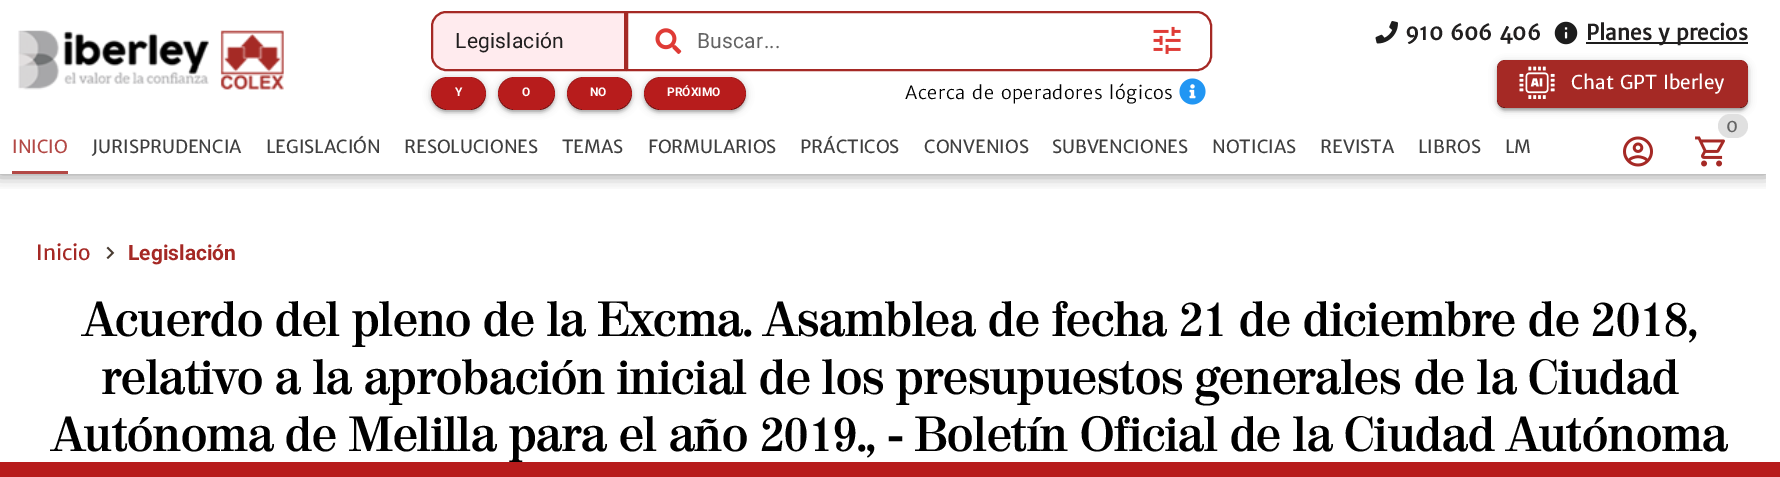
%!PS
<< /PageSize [1780 477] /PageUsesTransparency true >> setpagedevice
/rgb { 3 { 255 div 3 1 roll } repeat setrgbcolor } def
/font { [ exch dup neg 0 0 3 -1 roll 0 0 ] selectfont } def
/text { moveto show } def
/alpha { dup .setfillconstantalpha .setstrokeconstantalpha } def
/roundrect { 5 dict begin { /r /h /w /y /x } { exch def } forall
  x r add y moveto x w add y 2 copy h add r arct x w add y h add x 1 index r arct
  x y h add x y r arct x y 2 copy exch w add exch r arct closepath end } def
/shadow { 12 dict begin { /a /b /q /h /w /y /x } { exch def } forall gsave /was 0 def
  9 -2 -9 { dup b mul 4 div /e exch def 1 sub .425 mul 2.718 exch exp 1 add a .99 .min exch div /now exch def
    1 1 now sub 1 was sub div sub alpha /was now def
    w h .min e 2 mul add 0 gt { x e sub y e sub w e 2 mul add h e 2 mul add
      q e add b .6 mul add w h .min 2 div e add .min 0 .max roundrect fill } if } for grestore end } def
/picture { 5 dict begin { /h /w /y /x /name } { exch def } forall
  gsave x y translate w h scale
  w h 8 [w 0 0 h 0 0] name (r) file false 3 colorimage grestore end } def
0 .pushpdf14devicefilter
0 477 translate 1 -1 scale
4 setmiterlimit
255 255 255 rgb
0 0 1780 477 rectfill
(img_01.rgb) 18 30 266 60 picture
255 235 238 rgb
446 12 moveto 179 0 rlineto 0 58 rlineto -179 0 rlineto -7.5 0 -14 -6.5 -14 -14 rcurveto 0 -30 rlineto 0 -7.5 6.5 -14 14 -14 rcurveto closepath gsave fill grestore
165 41 37 rgb
2 setlinewidth
stroke
627 12 moveto 570 0 rlineto 7.5 0 14 6.5 14 14 rcurveto 0 30 rlineto 0 7.5 -6.5 14 -14 14 rcurveto -570 0 rlineto closepath stroke
(img_02.rgb) 655 28 27 26 picture
(img_03.rgb) 1153 26 28 28 picture
183 28 28 rgb
431 77 55 33 16.5 roundrect fill
gsave
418 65 moveto 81 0 rlineto 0 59 rlineto -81 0 rlineto closepath 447.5 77 moveto 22 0 rlineto 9 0 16.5 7.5 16.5 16.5 rcurveto 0 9 -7.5 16.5 -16.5 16.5 rcurveto -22 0 rlineto -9 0 -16.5 -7.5 -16.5 -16.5 rcurveto 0 -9 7.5 -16.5 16.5 -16.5 rcurveto closepath eoclip newpath
0 0 0 rgb
431 78 55 33 16.5 4 0.2 shadow
grestore
498 77 57 33 16.5 roundrect fill
gsave
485 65 moveto 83 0 rlineto 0 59 rlineto -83 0 rlineto closepath 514.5 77 moveto 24 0 rlineto 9 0 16.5 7.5 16.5 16.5 rcurveto 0 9 -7.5 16.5 -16.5 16.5 rcurveto -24 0 rlineto -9 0 -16.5 -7.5 -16.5 -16.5 rcurveto 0 -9 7.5 -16.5 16.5 -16.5 rcurveto closepath eoclip newpath
0 0 0 rgb
498 78 57 33 16.5 4 0.2 shadow
grestore
567 77 65 33 16.5 roundrect fill
gsave
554 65 moveto 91 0 rlineto 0 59 rlineto -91 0 rlineto closepath 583.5 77 moveto 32 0 rlineto 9 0 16.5 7.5 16.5 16.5 rcurveto 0 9 -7.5 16.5 -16.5 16.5 rcurveto -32 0 rlineto -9 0 -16.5 -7.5 -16.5 -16.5 rcurveto 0 -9 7.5 -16.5 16.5 -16.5 rcurveto closepath eoclip newpath
0 0 0 rgb
567 78 65 33 16.5 4 0.2 shadow
grestore
644 77 102 33 16.5 roundrect fill
(img_04.rgb) 1179 78 27 27 picture
(img_05.rgb) 1375 21 23 23 picture
(img_06.rgb) 1554 21 24 24 picture
29 29 29 rgb
1586 42 162 2 rectfill
165 41 37 rgb
1497 60 251 48 8 roundrect fill
gsave
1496 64 moveto 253 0 rlineto 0 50 rlineto -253 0 rlineto closepath 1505 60 moveto 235 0 rlineto 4.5 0 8 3.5 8 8 rcurveto 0 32 rlineto 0 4.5 -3.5 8 -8 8 rcurveto -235 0 rlineto -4.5 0 -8 -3.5 -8 -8 rcurveto 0 -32 rlineto 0 -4.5 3.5 -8 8 -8 rcurveto closepath eoclip newpath
0 0 0 rgb
1500 68 245 42 5 1 0.12 shadow
grestore
gsave
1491 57 moveto 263 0 rlineto 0 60 rlineto -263 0 rlineto closepath 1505 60 moveto 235 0 rlineto 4.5 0 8 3.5 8 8 rcurveto 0 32 rlineto 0 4.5 -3.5 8 -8 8 rcurveto -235 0 rlineto -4.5 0 -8 -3.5 -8 -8 rcurveto 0 -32 rlineto 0 -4.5 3.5 -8 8 -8 rcurveto closepath eoclip newpath
0 0 0 rgb
1497 63 251 48 8 1.5 0.14 shadow
grestore
gsave
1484 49 moveto 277 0 rlineto 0 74 rlineto -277 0 rlineto closepath 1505 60 moveto 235 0 rlineto 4.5 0 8 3.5 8 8 rcurveto 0 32 rlineto 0 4.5 -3.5 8 -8 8 rcurveto -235 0 rlineto -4.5 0 -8 -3.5 -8 -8 rcurveto 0 -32 rlineto 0 -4.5 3.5 -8 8 -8 rcurveto closepath eoclip newpath
0 0 0 rgb
1497 62 251 48 8 4 0.2 shadow
grestore
(img_07.rgb) 1519 66 36 33 picture
(img_08.rgb) 1695 136 30 31 picture
224 224 224 rgb
1718 114 30 24 12 roundrect fill
(img_09.rgb) 1623 136 30 31 picture
179 73 70 rgb
12 171 56 3 rectfill
gsave
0 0 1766 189 rectclip
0 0 moveto 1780 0 rlineto 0 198 rlineto -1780 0 rlineto closepath 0 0 moveto 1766 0 rlineto 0 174 rlineto -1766 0 rlineto closepath eoclip newpath
0 0 0 rgb
0 0 1766 174 0 7.5 0.24 shadow
grestore
gsave
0 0 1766 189 rectclip
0 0 moveto 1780 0 rlineto 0 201 rlineto -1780 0 rlineto closepath 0 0 moveto 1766 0 rlineto 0 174 rlineto -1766 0 rlineto closepath eoclip newpath
0 0 0 rgb
-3 -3 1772 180 0 7.5 0.2 shadow
grestore
gsave
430 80 moveto 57 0 rlineto 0 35 rlineto -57 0 rlineto closepath 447.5 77 moveto 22 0 rlineto 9 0 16.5 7.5 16.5 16.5 rcurveto 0 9 -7.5 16.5 -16.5 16.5 rcurveto -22 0 rlineto -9 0 -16.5 -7.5 -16.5 -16.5 rcurveto 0 -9 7.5 -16.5 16.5 -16.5 rcurveto closepath eoclip newpath
0 0 0 rgb
434 84 49 27 13.5 1 0.12 shadow
grestore
gsave
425 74 moveto 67 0 rlineto 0 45 rlineto -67 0 rlineto closepath 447.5 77 moveto 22 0 rlineto 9 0 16.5 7.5 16.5 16.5 rcurveto 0 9 -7.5 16.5 -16.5 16.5 rcurveto -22 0 rlineto -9 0 -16.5 -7.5 -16.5 -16.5 rcurveto 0 -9 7.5 -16.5 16.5 -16.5 rcurveto closepath eoclip newpath
0 0 0 rgb
431 80 55 33 16.5 1.5 0.14 shadow
grestore
gsave
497 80 moveto 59 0 rlineto 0 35 rlineto -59 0 rlineto closepath 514.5 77 moveto 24 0 rlineto 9 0 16.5 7.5 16.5 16.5 rcurveto 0 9 -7.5 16.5 -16.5 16.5 rcurveto -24 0 rlineto -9 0 -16.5 -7.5 -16.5 -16.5 rcurveto 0 -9 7.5 -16.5 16.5 -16.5 rcurveto closepath eoclip newpath
0 0 0 rgb
501 84 51 27 13.5 1 0.12 shadow
grestore
gsave
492 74 moveto 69 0 rlineto 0 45 rlineto -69 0 rlineto closepath 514.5 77 moveto 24 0 rlineto 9 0 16.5 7.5 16.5 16.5 rcurveto 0 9 -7.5 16.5 -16.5 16.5 rcurveto -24 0 rlineto -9 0 -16.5 -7.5 -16.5 -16.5 rcurveto 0 -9 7.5 -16.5 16.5 -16.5 rcurveto closepath eoclip newpath
0 0 0 rgb
498 80 57 33 16.5 1.5 0.14 shadow
grestore
gsave
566 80 moveto 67 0 rlineto 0 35 rlineto -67 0 rlineto closepath 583.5 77 moveto 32 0 rlineto 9 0 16.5 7.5 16.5 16.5 rcurveto 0 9 -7.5 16.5 -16.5 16.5 rcurveto -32 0 rlineto -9 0 -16.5 -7.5 -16.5 -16.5 rcurveto 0 -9 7.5 -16.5 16.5 -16.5 rcurveto closepath eoclip newpath
0 0 0 rgb
570 84 59 27 13.5 1 0.12 shadow
grestore
gsave
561 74 moveto 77 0 rlineto 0 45 rlineto -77 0 rlineto closepath 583.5 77 moveto 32 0 rlineto 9 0 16.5 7.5 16.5 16.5 rcurveto 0 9 -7.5 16.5 -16.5 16.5 rcurveto -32 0 rlineto -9 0 -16.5 -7.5 -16.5 -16.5 rcurveto 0 -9 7.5 -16.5 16.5 -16.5 rcurveto closepath eoclip newpath
0 0 0 rgb
567 80 65 33 16.5 1.5 0.14 shadow
grestore
gsave
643 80 moveto 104 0 rlineto 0 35 rlineto -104 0 rlineto closepath 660.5 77 moveto 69 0 rlineto 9 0 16.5 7.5 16.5 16.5 rcurveto 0 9 -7.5 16.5 -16.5 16.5 rcurveto -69 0 rlineto -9 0 -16.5 -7.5 -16.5 -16.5 rcurveto 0 -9 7.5 -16.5 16.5 -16.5 rcurveto closepath eoclip newpath
0 0 0 rgb
647 84 96 27 13.5 1 0.12 shadow
grestore
gsave
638 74 moveto 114 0 rlineto 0 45 rlineto -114 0 rlineto closepath 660.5 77 moveto 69 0 rlineto 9 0 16.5 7.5 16.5 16.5 rcurveto 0 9 -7.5 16.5 -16.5 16.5 rcurveto -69 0 rlineto -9 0 -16.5 -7.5 -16.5 -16.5 rcurveto 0 -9 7.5 -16.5 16.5 -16.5 rcurveto closepath eoclip newpath
0 0 0 rgb
644 80 102 33 16.5 1.5 0.14 shadow
grestore
gsave
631 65 moveto 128 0 rlineto 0 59 rlineto -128 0 rlineto closepath 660.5 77 moveto 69 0 rlineto 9 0 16.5 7.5 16.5 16.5 rcurveto 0 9 -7.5 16.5 -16.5 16.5 rcurveto -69 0 rlineto -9 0 -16.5 -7.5 -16.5 -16.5 rcurveto 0 -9 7.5 -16.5 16.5 -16.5 rcurveto closepath eoclip newpath
0 0 0 rgb
644 78 102 33 16.5 4 0.2 shadow
grestore
(img_10.rgb) 106 246 9 13 picture
183 28 28 rgb
0 462 1780 15 rectfill
/Roboto-Regular 21 font
33 31 31 rgb
455 48 moveto 0.25 0 (Legislación) ashow
100 100 100 rgb
697 48 moveto 0.25 0 (Buscar...) ashow
/Roboto-Bold 12 font
255 255 255 rgb
(Y) 455 96 text
(O) 522 96 text
(NO) 590 96 text
(PRÓXIMO) 667 96 text
/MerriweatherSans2-Regular 18 font
0 0 0 rgb
905 99 moveto 0.6 0 (Acerca de operadores lógicos) ashow
/MerriweatherSans-Bold 21 font
33 31 31 rgb
(910 606 406) 1405 40 text
(Planes y precios) 1586 40 text
/MerriweatherSans-Regular 19 font
255 255 255 rgb
(Chat GPT Iberley) 1571 89 text
/MerriweatherSans-Regular 18 font
100 100 100 rgb
(0) 1726 132 text
179 73 70 rgb
(INICIO) 12 153 text
63 63 63 rgb
(JURISPRUDENCIA) 92 153 text
(LEGISLACIÓN) 266 153 text
(RESOLUCIONES) 404 153 text
(TEMAS) 562 153 text
(FORMULARIOS) 648 153 text
(PRÁCTICOS) 800 153 text
(CONVENIOS) 924 153 text
(SUBVENCIONES) 1052 153 text
(NOTICIAS) 1212 153 text
(REVISTA) 1320 153 text
(LIBROS) 1418 153 text
(LM) 1505 153 text
/MerriweatherSans-Regular 21 font
165 41 37 rgb
(Inicio) 36 260 text
/Roboto-Bold 21 font
(Legislación) 128 260 text
/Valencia-Bold 48 font
0 0 0 rgb
(Acuerdo del pleno de la Excma. Asamblea de fecha 21 de diciembre de 2018,) 83 336 text
(relativo a la aprobación inicial de los presupuestos generales de la Ciudad) 102 394 text
(Autónoma de Melilla para el año 2019., - Boletín Oficial de la Ciudad Autónoma) 52 451 text
.poppdf14devicefilter showpage
